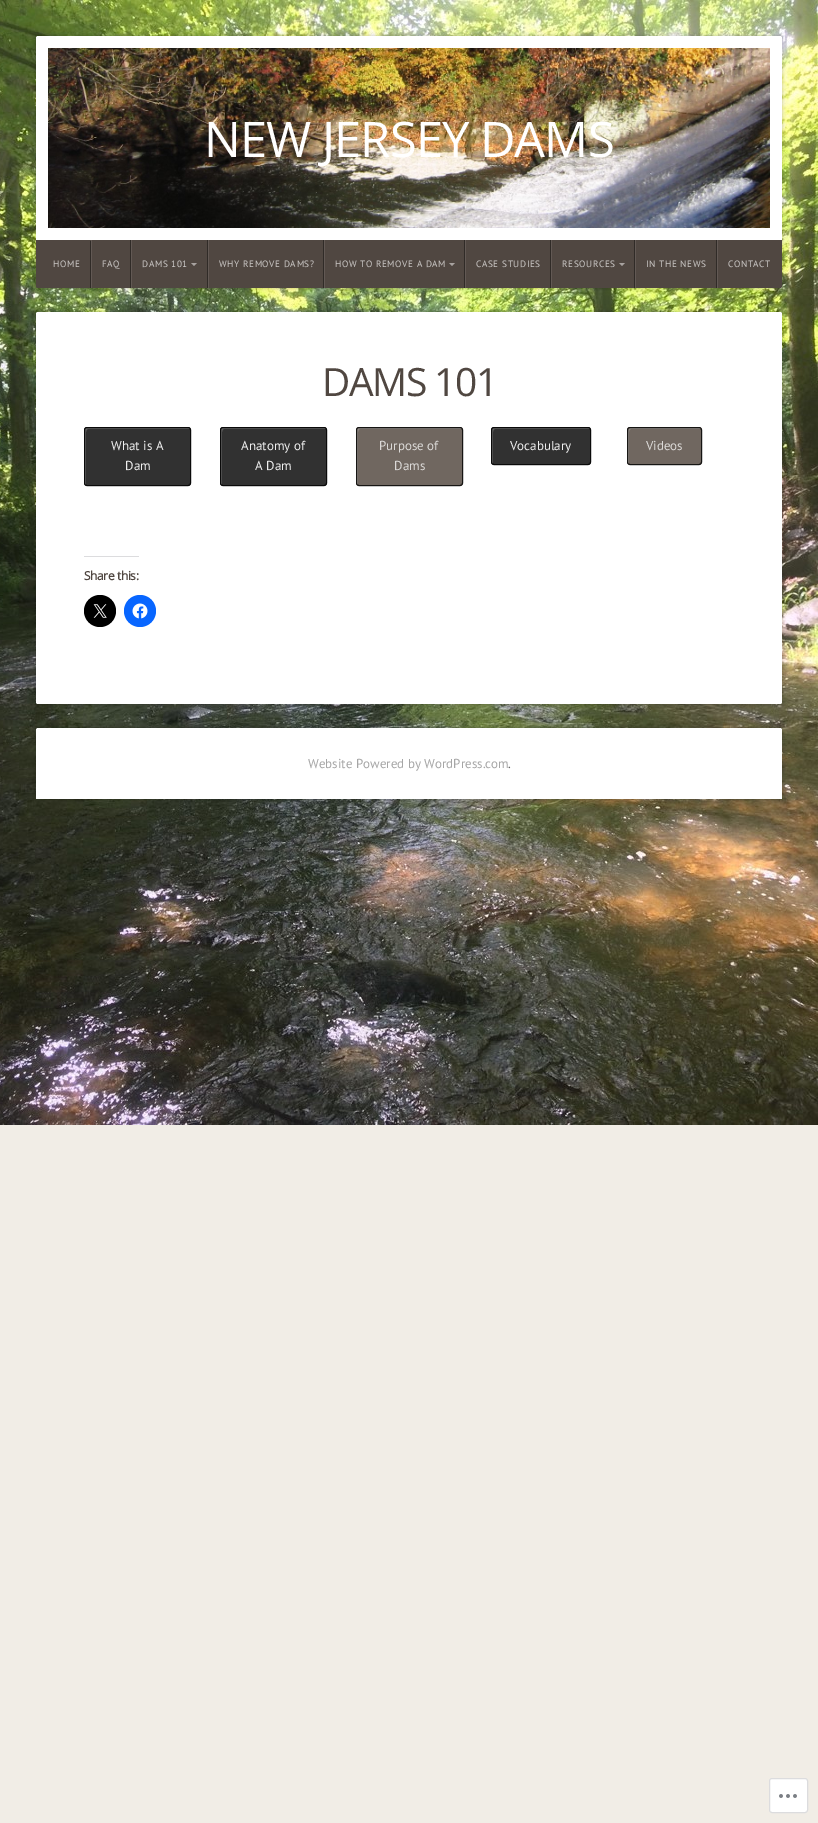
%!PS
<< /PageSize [818 1823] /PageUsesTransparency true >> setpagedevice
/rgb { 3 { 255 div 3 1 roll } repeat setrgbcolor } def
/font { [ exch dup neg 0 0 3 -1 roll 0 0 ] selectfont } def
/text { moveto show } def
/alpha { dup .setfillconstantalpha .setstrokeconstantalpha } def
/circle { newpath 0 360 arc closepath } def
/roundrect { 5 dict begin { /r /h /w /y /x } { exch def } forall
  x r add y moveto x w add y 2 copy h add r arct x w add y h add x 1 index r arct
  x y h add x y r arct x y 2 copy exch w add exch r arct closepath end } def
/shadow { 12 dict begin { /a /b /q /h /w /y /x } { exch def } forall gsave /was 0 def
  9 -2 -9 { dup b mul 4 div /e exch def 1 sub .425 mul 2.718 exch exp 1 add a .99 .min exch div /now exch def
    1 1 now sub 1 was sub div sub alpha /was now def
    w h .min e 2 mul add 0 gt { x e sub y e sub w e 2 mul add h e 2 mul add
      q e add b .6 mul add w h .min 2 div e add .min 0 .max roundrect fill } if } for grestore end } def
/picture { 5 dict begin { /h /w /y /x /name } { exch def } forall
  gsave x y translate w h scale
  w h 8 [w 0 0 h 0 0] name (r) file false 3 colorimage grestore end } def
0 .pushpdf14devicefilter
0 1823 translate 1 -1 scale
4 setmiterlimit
241 237 230 rgb
0 0 818 1823 rectfill
(img_01.rgb) 0 0 818 1125 picture
0 0 0 rgb
36 36 746 252 2 2 0.24 shadow
255 255 255 rgb
38 36 moveto 742 0 rlineto 1 0 2 1 2 2 rcurveto 0 202 rlineto -746 0 rlineto 0 -202 rlineto 0 -1 1 -2 2 -2 rcurveto closepath fill
(img_02.rgb) 48 48 722 180 picture
80 71 65 rgb
36 240 moveto 746 0 rlineto 0 46 rlineto 0 1 -1 2 -2 2 rcurveto -742 0 rlineto -1 0 -2 -1 -2 -2 rcurveto closepath fill
48 43 39 rgb
90 241 1 47 rectfill
130 240 1 48 rectfill
98 89 84 rgb
91 240 1 48 rectfill
48 43 39 rgb
207 240 1 48 rectfill
98 89 84 rgb
131 240 1 48 rectfill
168 163 160 rgb
191 263 moveto 6 0 rlineto -3 3 rlineto closepath fill
48 43 39 rgb
323 240 1 48 rectfill
98 89 84 rgb
208 240 1 48 rectfill
48 43 39 rgb
464 240 1 48 rectfill
98 89 84 rgb
324 240 1 48 rectfill
168 163 160 rgb
449 263 moveto 6 0 rlineto -3 3 rlineto closepath fill
48 43 39 rgb
550 240 1 48 rectfill
98 89 84 rgb
465 240 1 48 rectfill
48 43 39 rgb
634 240 1 48 rectfill
98 89 84 rgb
551 240 1 48 rectfill
168 163 160 rgb
619 263 moveto 6 0 rlineto -3 3 rlineto closepath fill
48 43 39 rgb
716 240 1 48 rectfill
98 89 84 rgb
635 240 1 48 rectfill
717 240 1 48 rectfill
0 0 0 rgb
36 312 746 392 2 2 0.24 shadow
255 255 255 rgb
36 312 746 392 2 roundrect fill
49 49 49 rgb
84 427 107 59 3 roundrect fill
98 98 98 rgb
88 429 moveto 102 0 rlineto 0 0 -1 -1 -2 -1 rcurveto -101 0 rlineto -1 0 -2 1 -2 2 rcurveto 0 53 rlineto 0 1 1 2 1 2 rcurveto 0 -45 rlineto 0 -4 -1 -11 2 -11 rcurveto closepath fill
0.8 alpha
0 0 0 rgb
84.5 427.5 106 58 2.5 roundrect stroke
1 alpha
49 49 49 rgb
220 427 107 59 3 roundrect fill
98 98 98 rgb
224 429 moveto 102 0 rlineto 0 0 -1 -1 -2 -1 rcurveto -101 0 rlineto -1 0 -2 1 -2 2 rcurveto 0 53 rlineto 0 1 1 2 1 2 rcurveto 0 -45 rlineto 0 -4 -1 -11 2 -11 rcurveto closepath fill
0.8 alpha
0 0 0 rgb
220.5 427.5 106 58 2.5 roundrect stroke
1 alpha
112 103 96 rgb
356 427 107 59 3 roundrect fill
146 139 134 rgb
360 429 moveto 102 0 rlineto 0 0 -1 -1 -2 -1 rcurveto -101 0 rlineto -1 0 -2 1 -2 2 rcurveto 0 53 rlineto 0 1 1 2 1 2 rcurveto 0 -45 rlineto 0 -4 -1 -11 2 -11 rcurveto closepath fill
0.8 alpha
0 0 0 rgb
356.5 427.5 106 58 2.5 roundrect stroke
1 alpha
49 49 49 rgb
491 427 100 38 3 roundrect fill
98 98 98 rgb
495 429 moveto 95 0 rlineto 0 0 -1 -1 -2 -1 rcurveto -94 0 rlineto -1 0 -2 1 -2 2 rcurveto 0 32 rlineto 0 1 1 2 1 2 rcurveto 0 -28 rlineto 0 0 -1 -7 2 -7 rcurveto closepath fill
0.8 alpha
0 0 0 rgb
491.5 427.5 99 37 2.5 roundrect stroke
1 alpha
112 103 96 rgb
627 427 75 38 3 roundrect fill
146 139 134 rgb
631 429 moveto 70 0 rlineto -1 -1 rlineto -70 0 rlineto -1 1 rlineto -2 1 -1 19 -1 22 rcurveto 0 2 -1 12 1 13 rcurveto 0 -28 rlineto 0 0 -1 -7 2 -7 rcurveto closepath fill
0.8 alpha
0 0 0 rgb
627.5 427.5 74 37 2.5 roundrect stroke
1 alpha
220 220 222 rgb
84 556 55 1 rectfill
0 0 0 rgb
100 611 16 circle fill
(img_03.rgb) 93 604 14 14 picture
8 102 255 rgb
140 611 16 circle fill
(img_04.rgb) 132 603 16 16 picture
0 0 0 rgb
36 728 746 71 2 2 0.24 shadow
255 255 255 rgb
38 728 moveto 742 0 rlineto 1 0 2 1 2 2 rcurveto 0 69 rlineto -746 0 rlineto 0 -69 rlineto 0 -1 1 -2 2 -2 rcurveto closepath fill
769.5 1778.5 38 34 2.5 roundrect gsave fill grestore
220 220 222 rgb
stroke
(img_05.rgb) 779 1794 18 4 picture
/OpenSans-Regular 49 font
255 255 255 rgb
204 157 moveto -1 0 (NEW JERSEY DAMS) ashow
/PTSans-Regular 9.25 font
203 200 198 rgb
53 267 moveto 0.6 0 (HOME) ashow
102 267 moveto 0.6 0 (FAQ) ashow
142 267 moveto 0.6 0 (DAMS 101) ashow
219 267 moveto 0.6 0 (WHY REMOVE DAMS?) ashow
335 267 moveto 0.6 0 (HOW TO REMOVE A DAM) ashow
476 267 moveto 0.6 0 (CASE STUDIES) ashow
562 267 moveto 0.6 0 (RESOURCES) ashow
646 267 moveto 0.6 0 (IN THE NEWS) ashow
728 267 moveto 0.6 0 (CONTACT) ashow
/OpenSans-Regular 39 font
80 71 65 rgb
322 396 moveto -1.5 0 (DAMS 101) ashow
/PTSans-Regular 13 font
238 238 238 rgb
(What is A) 111 450 text
(Dam) 125 470 text
(Anatomy of) 241 450 text
(A Dam) 255 470 text
219 217 215 rgb
(Purpose of) 379 450 text
(Dams) 394 470 text
238 238 238 rgb
(Vocabulary) 510 450 text
219 217 215 rgb
(Videos) 646 450 text
/OpenSans-Bold 12 font
80 71 65 rgb
84 580 moveto -0.4 0 (Share this:) ashow
/PTSans-Regular 13 font
166 166 166 rgb
(Website Powered by WordPress.com) 308 768 text
102 102 102 rgb
(.) 508 768 text
.poppdf14devicefilter showpage
